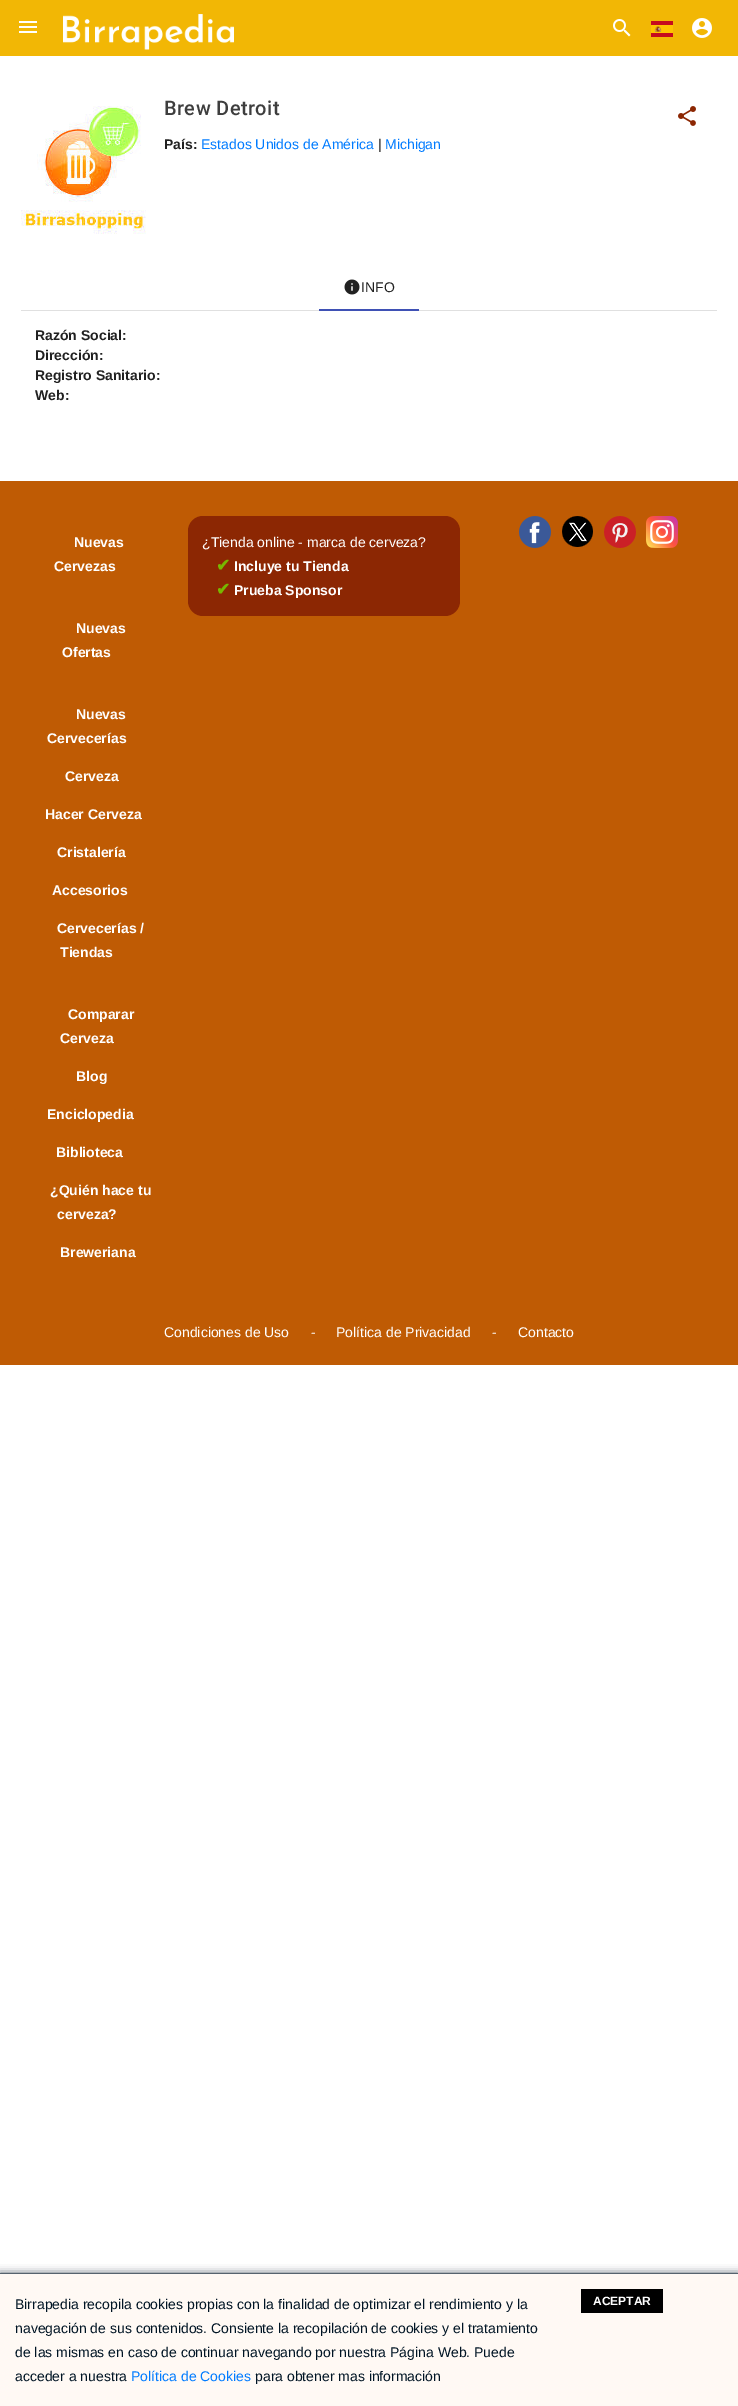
%!PS
<< /PageSize [738 2406] /PageUsesTransparency true >> setpagedevice
/rgb { 3 { 255 div 3 1 roll } repeat setrgbcolor } def
/font { [ exch dup neg 0 0 3 -1 roll 0 0 ] selectfont } def
/text { moveto show } def
/alpha { dup .setfillconstantalpha .setstrokeconstantalpha } def
/roundrect { 5 dict begin { /r /h /w /y /x } { exch def } forall
  x r add y moveto x w add y 2 copy h add r arct x w add y h add x 1 index r arct
  x y h add x y r arct x y 2 copy exch w add exch r arct closepath end } def
/shadow { 12 dict begin { /a /b /q /h /w /y /x } { exch def } forall gsave /was 0 def
  9 -2 -9 { dup b mul 4 div /e exch def 1 sub .425 mul 2.718 exch exp 1 add a .99 .min exch div /now exch def
    1 1 now sub 1 was sub div sub alpha /was now def
    w h .min e 2 mul add 0 gt { x e sub y e sub w e 2 mul add h e 2 mul add
      q e add b .6 mul add w h .min 2 div e add .min 0 .max roundrect fill } if } for grestore end } def
/picture { 5 dict begin { /h /w /y /x /name } { exch def } forall
  gsave x y translate w h scale
  w h 8 [w 0 0 h 0 0] name (r) file false 3 colorimage grestore end } def
0 .pushpdf14devicefilter
0 2406 translate 1 -1 scale
4 setmiterlimit
255 255 255 rgb
0 0 738 2406 rectfill
242 183 5 rgb
0 0 738 56 rectfill
(img_01.rgb) 19 21 18 12 picture
(img_02.rgb) 63 14 171 36 picture
(img_03.rgb) 613 19 18 18 picture
(img_04.rgb) 651 21 22 16 picture
(img_05.rgb) 692 18 20 20 picture
(img_06.rgb) 21 106 125 128 picture
(img_07.rgb) 678 106 18 20 picture
224 224 224 rgb
21 310 696 1 rectfill
(img_08.rgb) 344 279 16 16 picture
63 81 181 rgb
319 309 100 2 rectfill
191 91 4 rgb
0 481 738 884 rectfill
(img_09.rgb) 519 516 32 32 picture
(img_10.rgb) 562 516 31 31 picture
(img_11.rgb) 604 516 32 32 picture
(img_12.rgb) 646 516 32 32 picture
140 39 3 rgb
188 516 272 100 15 roundrect fill
86 99 110 rgb
0 2273 738 133 0 4 1 shadow
255 249 244 rgb
0 2274 738 132 rectfill
86 99 110 rgb
0 2273 738 1 rectfill
0 0 0 rgb
581 2289 82 24 rectfill
/Roboto-Medium 20 font
62 62 62 rgb
164 115 moveto 0.4 0 (Brew Detroit) ashow
/LiberationSans-Bold 14 font
33 33 33 rgb
(País:) 164 149 text
/LiberationSans-Regular 14 font
0 123 255 rgb
(Estados Unidos de América) 201 149 text
33 33 33 rgb
(|) 378 149 text
0 123 255 rgb
(Michigan) 385 149 text
33 33 33 rgb
(INFO) 361 292 text
/LiberationSans-Bold 14 font
(Razón Social:) 35 340 text
(Dirección:) 35 360 text
(Registro Sanitario:) 35 380 text
(Web:) 35 400 text
255 255 255 rgb
(Nuevas) 74 547 text
(Cervezas) 54 571 text
(Nuevas) 76 633 text
(Ofertas) 62 657 text
(Nuevas) 76 719 text
(Cervecerías) 47 743 text
(Cerveza) 65 781 text
(Hacer Cerveza) 45 819 text
(Cristalería) 57 857 text
(Accesorios) 52 895 text
(Cervecerías /) 57 933 text
(Tiendas) 60 957 text
(Comparar) 68 1019 text
(Cerveza) 60 1043 text
(Blog) 76 1081 text
(Enciclopedia) 47 1119 text
(Biblioteca) 56 1157 text
(¿Quién hace tu) 50 1195 text
(cerveza?) 57 1219 text
(Breweriana) 60 1257 text
/LiberationSans-Regular 14 font
(¿Tienda online - marca de cerveza?) 202 547 text
/DejaVuSans-Bold 17 font
119 184 0 rgb
(✔) 216 571 text
/LiberationSans-Bold 14 font
255 255 255 rgb
(Incluye tu Tienda) 234 571 text
/DejaVuSans-Bold 17 font
119 184 0 rgb
(✔) 216 595 text
/LiberationSans-Bold 14 font
255 255 255 rgb
(Prueba Sponsor) 234 595 text
/LiberationSans-Regular 14 font
(Condiciones de Uso) 164 1337 text
(-) 311 1337 text
(Política de Privacidad) 336 1337 text
(-) 492 1337 text
(Contacto) 518 1337 text
0 20 36 rgb
(Birrapedia recopila cookies propias con la finalidad de optimizar el rendimiento y la) 15 2309 text
(navegación de sus contenidos. Consiente la recopilación de cookies y el tratamiento) 15 2333 text
(de las mismas en caso de continuar navegando por nuestra Página Web. Puede) 15 2357 text
(acceder a nuestra) 15 2381 text
0 123 255 rgb
(Política de Cookies) 131 2381 text
0 20 36 rgb
(para obtener mas información) 255 2381 text
/LiberationSans-Bold 12 font
255 255 255 rgb
(ACEPTAR) 593 2305 text
.poppdf14devicefilter showpage
